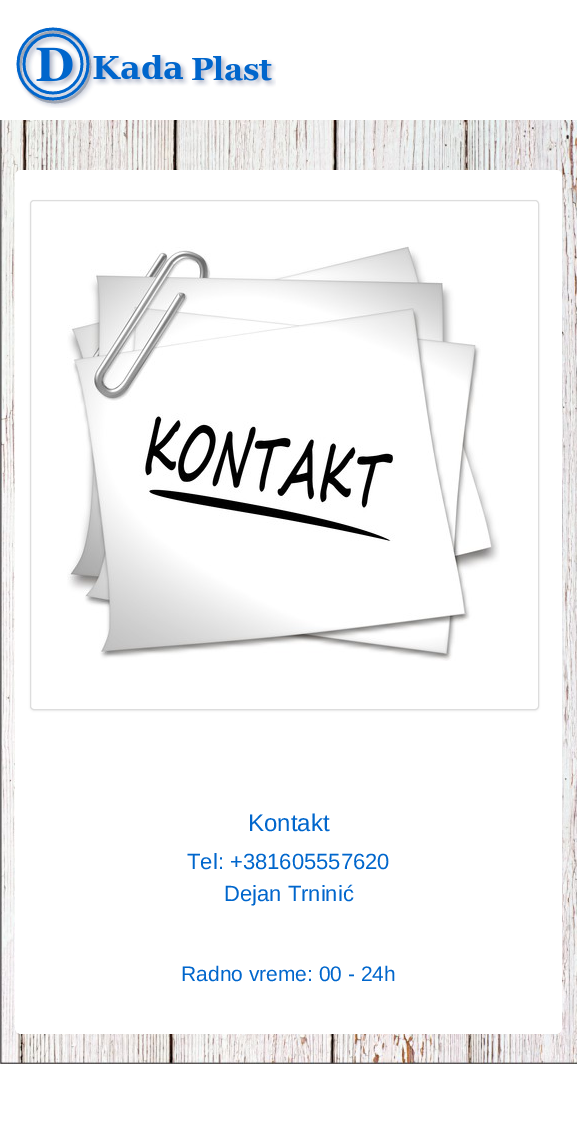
%!PS
<< /PageSize [577 1145] /PageUsesTransparency true >> setpagedevice
/rgb { 3 { 255 div 3 1 roll } repeat setrgbcolor } def
/font { [ exch dup neg 0 0 3 -1 roll 0 0 ] selectfont } def
/text { moveto show } def
/alpha { dup .setfillconstantalpha .setstrokeconstantalpha } def
/roundrect { 5 dict begin { /r /h /w /y /x } { exch def } forall
  x r add y moveto x w add y 2 copy h add r arct x w add y h add x 1 index r arct
  x y h add x y r arct x y 2 copy exch w add exch r arct closepath end } def
/shadow { 12 dict begin { /a /b /q /h /w /y /x } { exch def } forall gsave /was 0 def
  9 -2 -9 { dup b mul 4 div /e exch def 1 sub .425 mul 2.718 exch exp 1 add a .99 .min exch div /now exch def
    1 1 now sub 1 was sub div sub alpha /was now def
    w h .min e 2 mul add 0 gt { x e sub y e sub w e 2 mul add h e 2 mul add
      q e add b .6 mul add w h .min 2 div e add .min 0 .max roundrect fill } if } for grestore end } def
/picture { 5 dict begin { /h /w /y /x /name } { exch def } forall
  gsave x y translate w h scale
  w h 8 [w 0 0 h 0 0] name (r) file false 3 colorimage grestore end } def
0 .pushpdf14devicefilter
0 1145 translate 1 -1 scale
4 setmiterlimit
255 255 255 rgb
0 0 577 1145 rectfill
(img_01.rgb) 0 120 577 944 picture
(img_02.rgb) 16 27 260 81 picture
15 170 547 864 6 roundrect fill
0 0 0 rgb
30 201 509 510 4 1 0.07 shadow
255 255 255 rgb
30.5 200.5 508 509 3.5 roundrect gsave fill grestore
221 221 221 rgb
stroke
(img_03.rgb) 67 246 433 415 picture
/LiberationSans-Regular 24 font
0 102 204 rgb
(Kontakt) 248 831 text
/LiberationSans-Regular 22 font
(Tel: +381605557620) 187 869 text
(Dejan Trninić) 224 901 text
/LiberationSans-Regular 21 font
(Radno vreme: 00 - 24h) 181 981 text
.poppdf14devicefilter showpage
